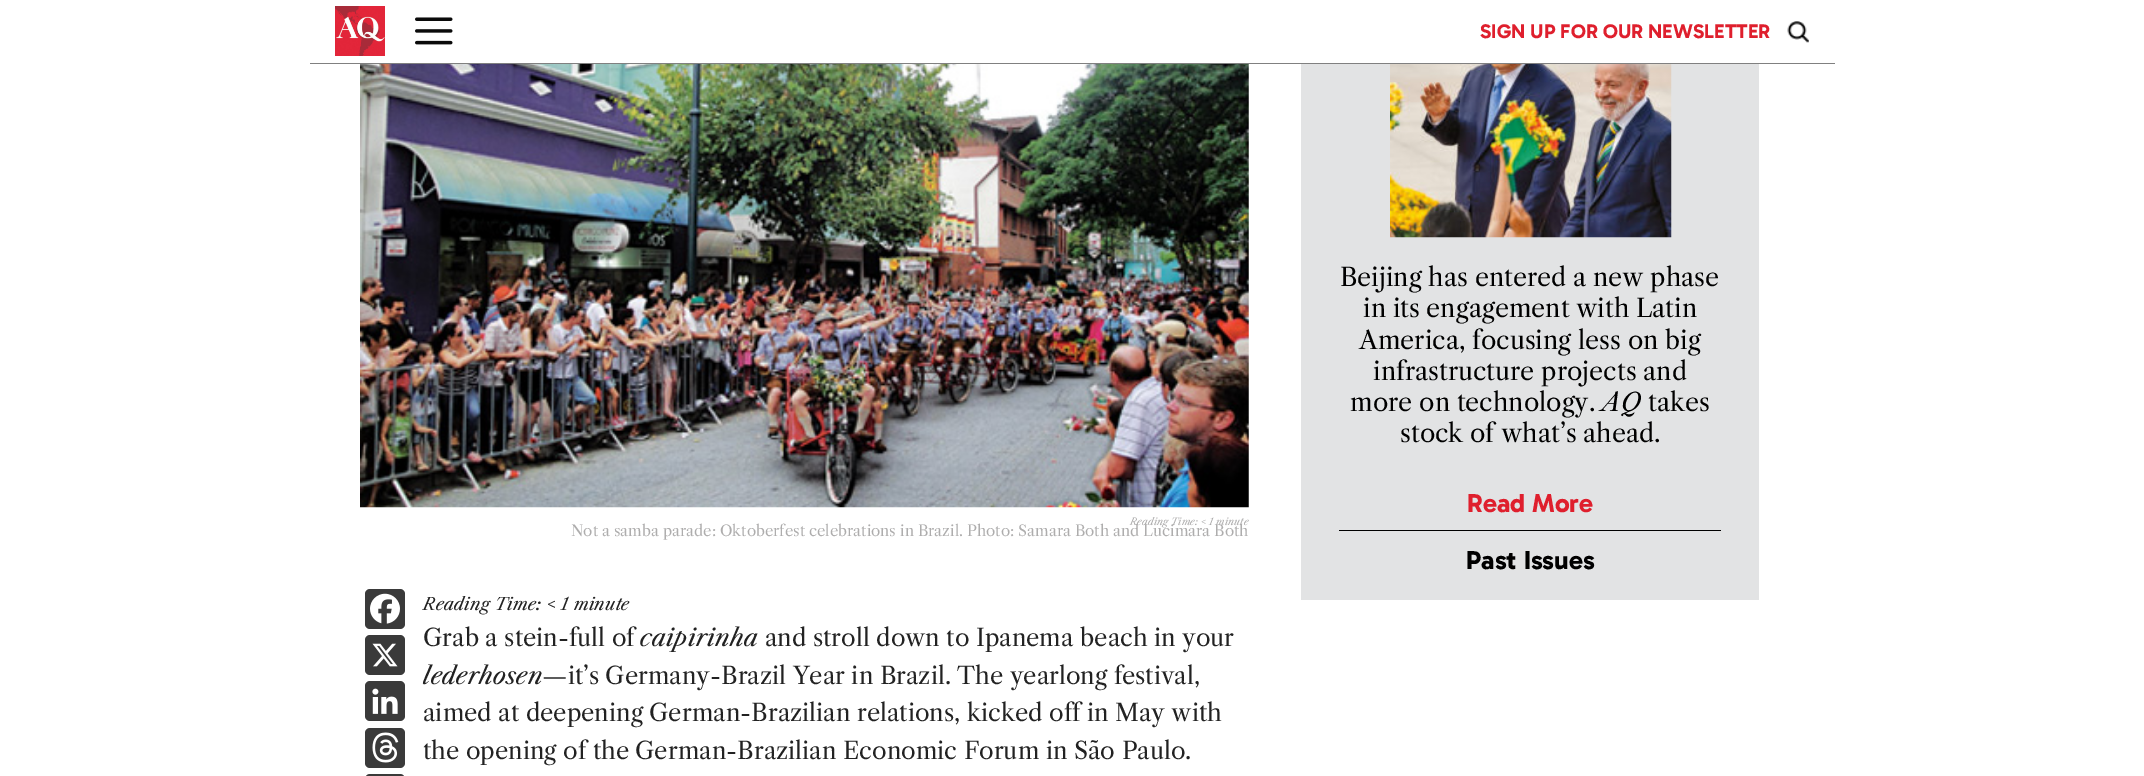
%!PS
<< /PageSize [2144 776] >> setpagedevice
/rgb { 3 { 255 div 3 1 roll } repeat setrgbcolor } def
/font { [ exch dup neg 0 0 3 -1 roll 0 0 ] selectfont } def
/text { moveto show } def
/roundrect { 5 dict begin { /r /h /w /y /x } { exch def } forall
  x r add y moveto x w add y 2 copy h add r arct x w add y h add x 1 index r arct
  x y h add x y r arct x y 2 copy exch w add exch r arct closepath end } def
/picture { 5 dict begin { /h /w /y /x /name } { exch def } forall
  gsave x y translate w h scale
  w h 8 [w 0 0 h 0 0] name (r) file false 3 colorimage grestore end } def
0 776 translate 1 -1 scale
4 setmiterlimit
255 255 255 rgb
0 0 2144 776 rectfill
128 128 128 rgb
310 63 1525 1 rectfill
(img_01.rgb) 335 6 50 50 picture
(img_02.rgb) 415 17 38 28 picture
(img_03.rgb) 1787 21 22 22 picture
226 227 228 rgb
1301 64 458 536 rectfill
(img_04.rgb) 1390 64 282 174 picture
0 0 0 rgb
1339 530 382 1 rectfill
(img_05.rgb) 360 64 889 444 picture
58 58 58 rgb
365 589 40 40 5 roundrect fill
(img_06.rgb) 370 593 30 31 picture
365 635 40 40 5 roundrect fill
(img_07.rgb) 372 643 26 24 picture
365 681 40 40 5 roundrect fill
(img_08.rgb) 372 688 26 26 picture
365 728 40 40 5 roundrect fill
(img_09.rgb) 372 732 27 31 picture
365 774 40 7 5 roundrect fill
/Gabarito-Bold 20 font
223 31 45 rgb
(SIGN UP FOR OUR NEWSLETTER) 1480 38 text
/LibreCaslonText-Regular 25 font
0 0 0 rgb
(Beijing has entered a new phase) 1340 286 text
(in its engagement with Latin) 1363 317 text
(America, focusing less on big) 1359 349 text
(infrastructure projects and) 1373 380 text
(more on technology.) 1350 411 text
/LibreCaslonText-Italic 25 font
(AQ) 1602 411 text
/LibreCaslonText-Regular 25 font
(takes) 1648 411 text
(stock of what’s ahead.) 1400 442 text
/Gabarito-Bold 26.25 font
223 31 45 rgb
(Read More) 1467 512 text
0 0 0 rgb
(Past Issues) 1466 569 text
/LibreCaslonText-Italic 9.75 font
174 173 173 rgb
(Reading Time: < 1 minute) 1130 525 text
/LibreCaslonText-Regular 15 font
(Not a samba parade: Oktoberfest celebrations in Brazil. Photo: Samara Both and Lucimara Both) 571 536 text
/LibreCaslonText-Italic 17 font
34 34 34 rgb
(Reading Time: < 1 minute) 423 610 text
/LibreCaslonText-Regular 23.75 font
(Grab a stein-full of) 423 646 text
/LibreCaslonText-Italic 23.75 font
(caipirinha) 640 646 text
/LibreCaslonText-Regular 23.75 font
(and stroll down to Ipanema beach in your) 765 646 text
/LibreCaslonText-Italic 23.75 font
(lederhosen) 423 684 text
/LibreCaslonText-Regular 23.75 font
(—it’s Germany-Brazil Year in Brazil. The yearlong festival,) 542 684 text
(aimed at deepening German-Brazilian relations, kicked off in May with) 423 721 text
(the opening of the German-Brazilian Economic Forum in São Paulo.) 423 759 text
showpage
